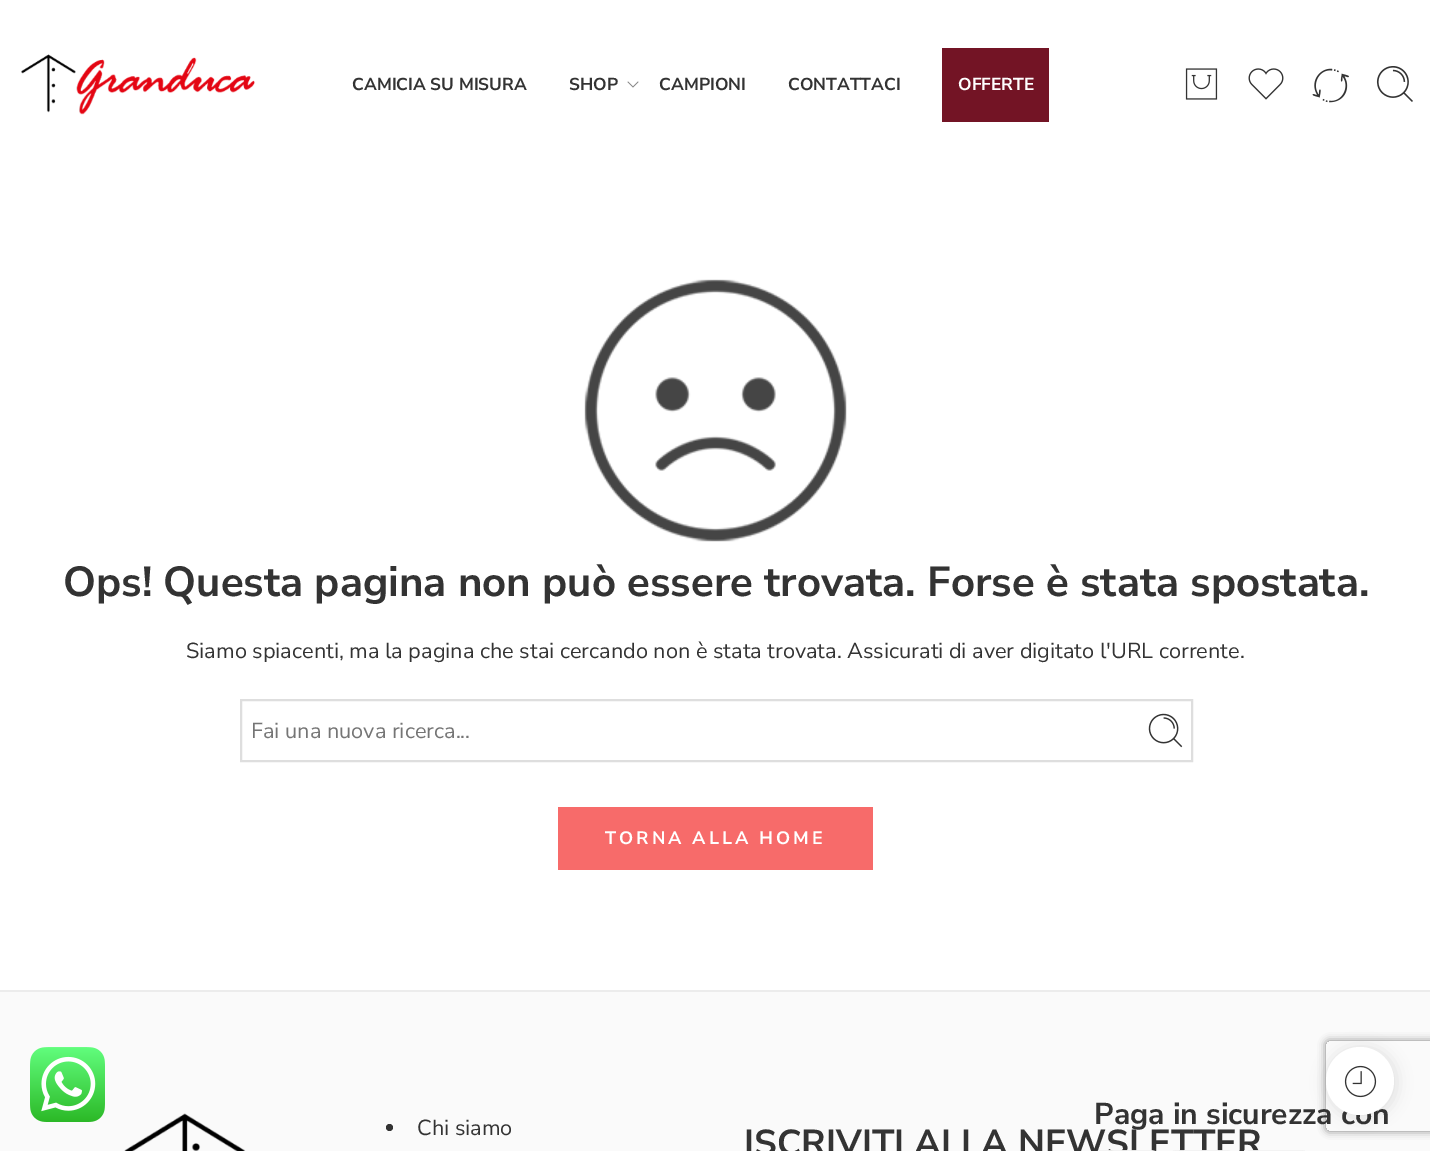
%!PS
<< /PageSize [1430 1151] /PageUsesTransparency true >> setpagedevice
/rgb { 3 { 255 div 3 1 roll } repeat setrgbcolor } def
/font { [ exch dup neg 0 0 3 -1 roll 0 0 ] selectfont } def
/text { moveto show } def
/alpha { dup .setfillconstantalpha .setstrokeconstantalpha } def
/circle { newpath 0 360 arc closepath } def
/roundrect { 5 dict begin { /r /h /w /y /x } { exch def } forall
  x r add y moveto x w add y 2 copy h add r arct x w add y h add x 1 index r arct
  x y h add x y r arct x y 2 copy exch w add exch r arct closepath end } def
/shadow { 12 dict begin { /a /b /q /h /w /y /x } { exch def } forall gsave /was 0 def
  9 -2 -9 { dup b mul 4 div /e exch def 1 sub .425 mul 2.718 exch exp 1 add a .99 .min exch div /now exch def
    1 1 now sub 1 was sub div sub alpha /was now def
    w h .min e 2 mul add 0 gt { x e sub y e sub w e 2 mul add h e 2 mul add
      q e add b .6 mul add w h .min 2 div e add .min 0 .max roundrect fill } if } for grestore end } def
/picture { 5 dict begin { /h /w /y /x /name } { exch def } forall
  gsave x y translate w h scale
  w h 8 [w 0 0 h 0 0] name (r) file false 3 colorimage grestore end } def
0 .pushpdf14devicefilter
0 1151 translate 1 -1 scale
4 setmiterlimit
255 255 255 rgb
0 0 1430 1151 rectfill
(img_01.rgb) 21 54 234 61 picture
(img_02.rgb) 627 81 12 7 picture
115 20 37 rgb
942 48 107 74 rectfill
(img_03.rgb) 1185 68 33 32 picture
(img_04.rgb) 1248 68 36 32 picture
(img_05.rgb) 1312 68 37 35 picture
(img_06.rgb) 1376 66 37 36 picture
(img_07.rgb) 584 279 263 263 picture
222 222 222 rgb
2 setlinewidth
241 700 951 61 rectstroke
(img_08.rgb) 1148 713 35 35 picture
247 107 106 rgb
558 807 315 63 rectfill
250 250 250 rgb
0 992 1430 159 rectfill
236 236 236 rgb
0 990 1430 2 rectfill
(img_09.rgb) 124 1113 122 38 picture
51 51 51 rgb
389.5 1127.5 3.5 circle fill
0 0 0 rgb
1326 1047 71 71 35.5 7.5 0.1 shadow
(img_12.rgb) 30 1047 75 75 picture
gsave
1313 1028 moveto 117 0 rlineto 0 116 rlineto -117 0 rlineto closepath 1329 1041 moveto 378 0 rlineto 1.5 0 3 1.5 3 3 rcurveto 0 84 rlineto 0 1.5 -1.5 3 -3 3 rcurveto -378 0 rlineto -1.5 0 -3 -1.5 -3 -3 rcurveto 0 -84 rlineto 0 -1.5 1.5 -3 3 -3 rcurveto closepath eoclip newpath
128 128 128 rgb
1326 1041 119 90 3 4 1 shadow
grestore
/NunitoSans-Bold 17.25 font
51 51 51 rgb
(CAMICIA SU MISURA) 352 90 text
(SHOP) 569 90 text
(CAMPIONI) 659 90 text
(CONTATTACI) 788 90 text
255 255 255 rgb
(OFFERTE) 958 90 text
/NunitoSans-Bold 42 font
51 51 51 rgb
(Ops! Questa pagina non può essere trovata. Forse è stata spostata.) 63 596 text
/NunitoSans-Regular 21.75 font
(Siamo spiacenti, ma la pagina che stai cercando non è stata trovata. Assicurati di aver digitato l'URL corrente.) 186 658 text
117 117 117 rgb
(Fai una nuova ricerca...) 251 738 text
/NunitoSans-Bold 18 font
255 255 255 rgb
605 844 moveto 3 0 (TORNA ALLA HOME) ashow
/NunitoSans-Regular 21.75 font
51 51 51 rgb
(Chi siamo) 417 1135 text
/NunitoSans-Bold 30 font
(Paga in sicurezza con) 1094 1124 text
/NunitoSans-Bold 36 font
(ISCRIVITI ALLA NEWSLETTER) 744 1155 text
(img_10.rgb) 1097 1150 208 1 picture
255 255 255 rgb
1360 1081 34 circle fill
(img_11.rgb) 1344 1065 33 33 picture
.poppdf14devicefilter showpage
